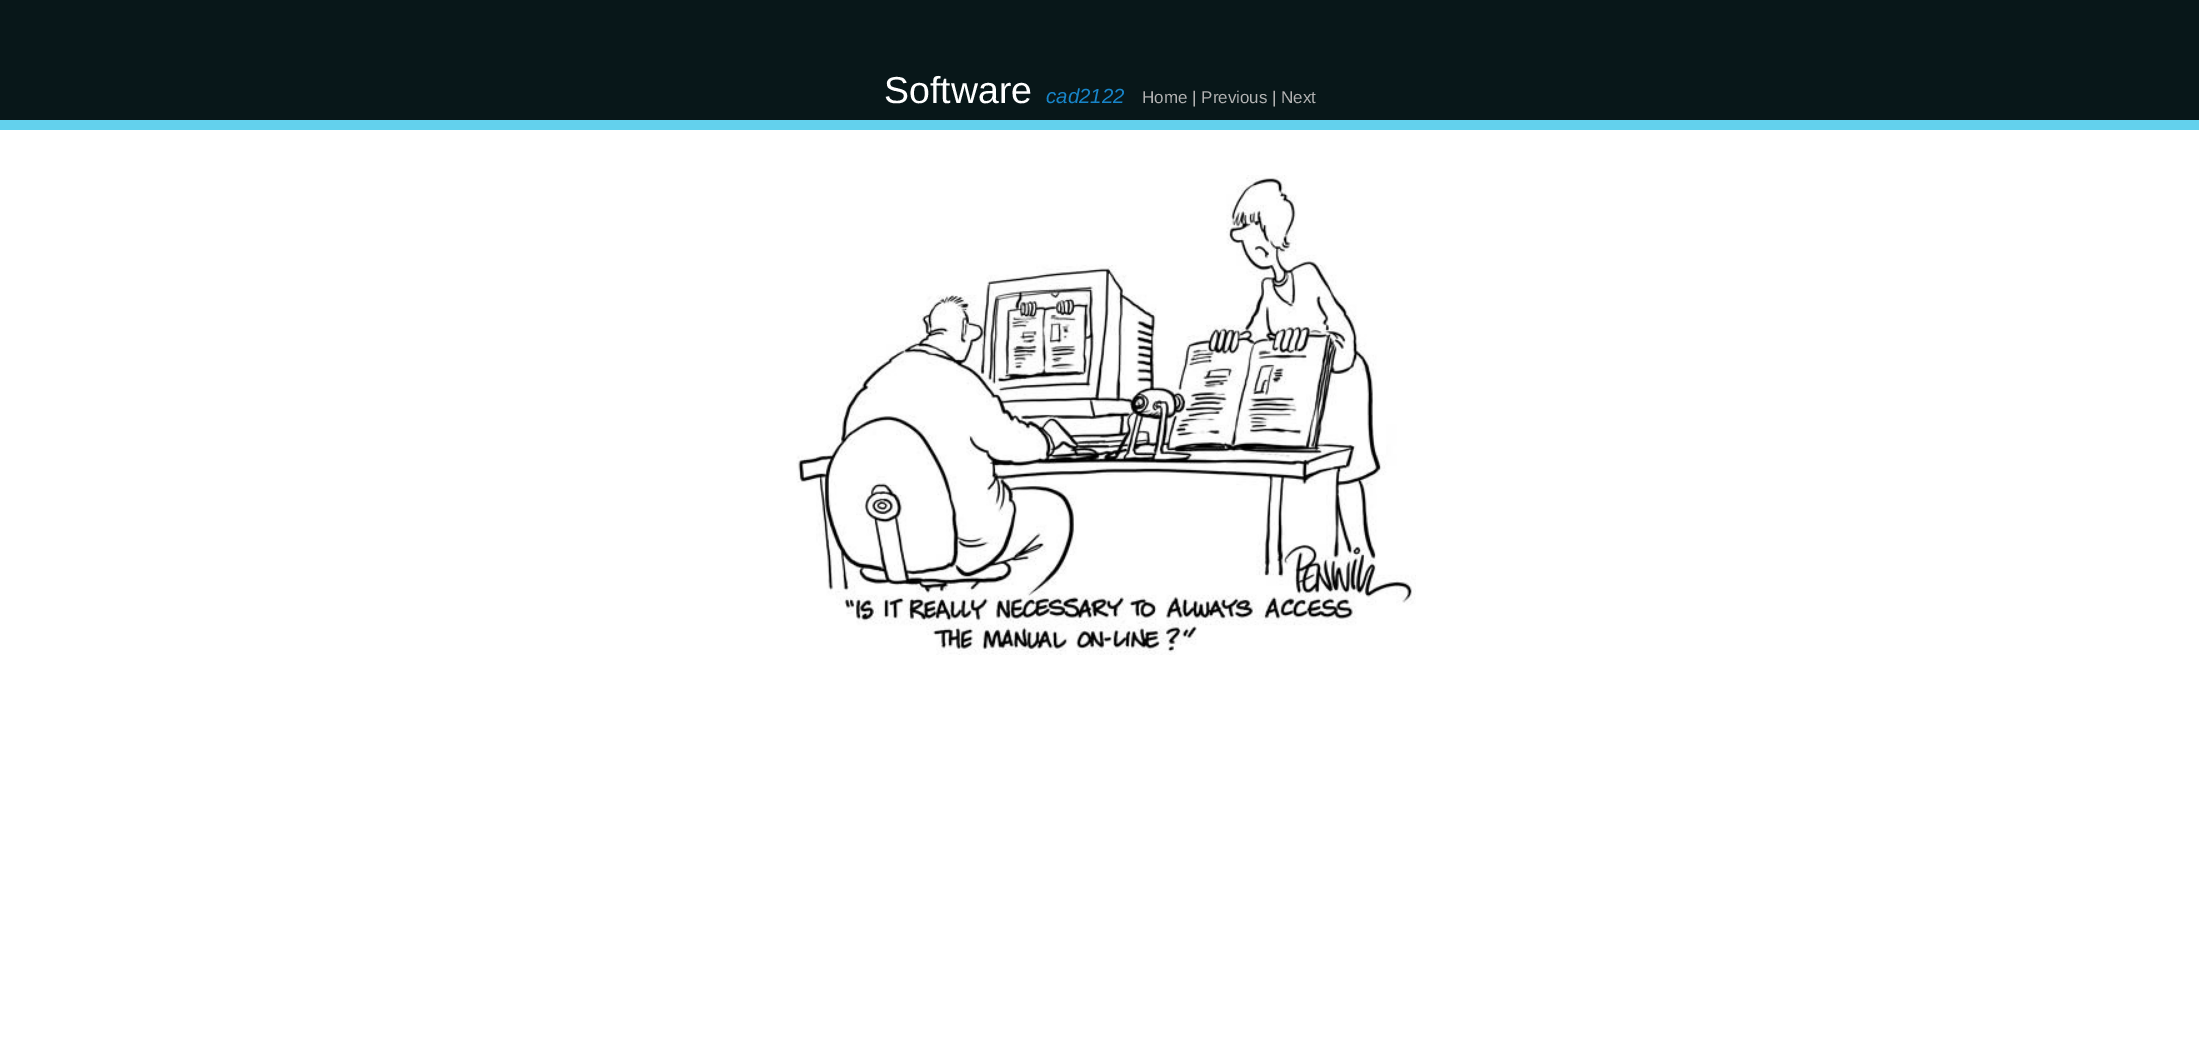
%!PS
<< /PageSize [2199 1042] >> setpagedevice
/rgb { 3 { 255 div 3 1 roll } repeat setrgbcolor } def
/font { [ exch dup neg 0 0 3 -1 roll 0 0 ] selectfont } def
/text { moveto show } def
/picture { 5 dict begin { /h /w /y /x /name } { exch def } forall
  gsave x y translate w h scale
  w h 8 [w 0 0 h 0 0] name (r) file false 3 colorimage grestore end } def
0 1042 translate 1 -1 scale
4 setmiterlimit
255 255 255 rgb
0 0 2199 1042 rectfill
8 23 25 rgb
0 0 2199 120 rectfill
99 209 237 rgb
0 120 2199 10 rectfill
(img_01.rgb) 796 175 620 480 picture
/LiberationSans-Regular 37.5 font
255 255 255 rgb
(Software) 884 103 text
/LiberationSans-Italic 20.5 font
23 133 201 rgb
(cad2122) 1046 103 text
/LiberationSans-Regular 17 font
179 179 179 rgb
(Home | Previous | Next) 1142 103 text
showpage
